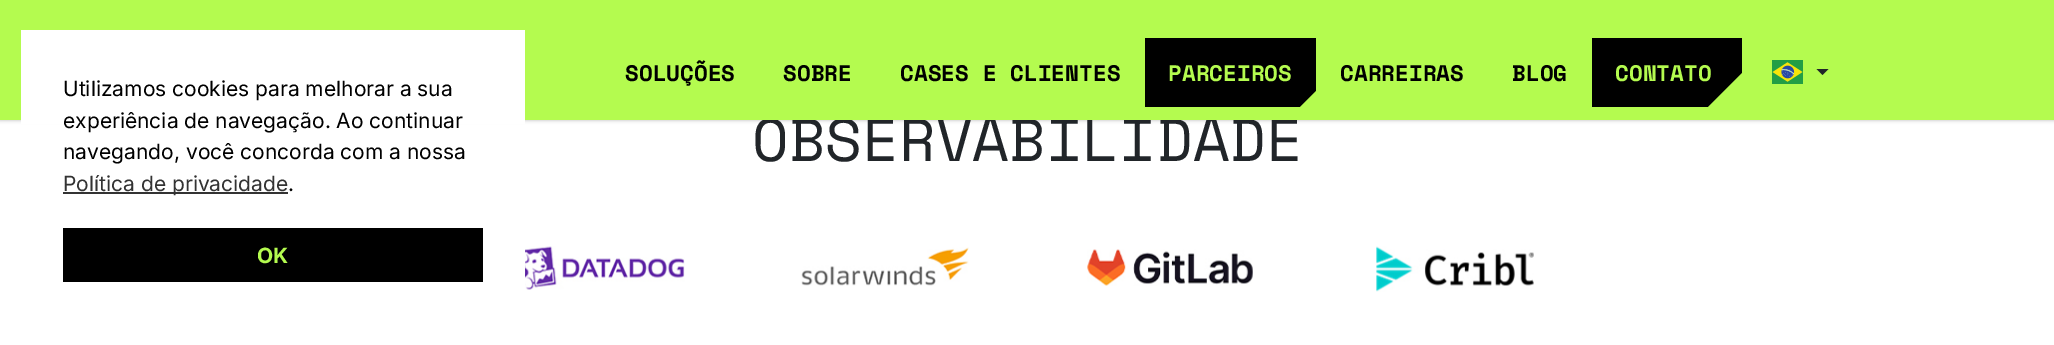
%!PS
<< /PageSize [2054 345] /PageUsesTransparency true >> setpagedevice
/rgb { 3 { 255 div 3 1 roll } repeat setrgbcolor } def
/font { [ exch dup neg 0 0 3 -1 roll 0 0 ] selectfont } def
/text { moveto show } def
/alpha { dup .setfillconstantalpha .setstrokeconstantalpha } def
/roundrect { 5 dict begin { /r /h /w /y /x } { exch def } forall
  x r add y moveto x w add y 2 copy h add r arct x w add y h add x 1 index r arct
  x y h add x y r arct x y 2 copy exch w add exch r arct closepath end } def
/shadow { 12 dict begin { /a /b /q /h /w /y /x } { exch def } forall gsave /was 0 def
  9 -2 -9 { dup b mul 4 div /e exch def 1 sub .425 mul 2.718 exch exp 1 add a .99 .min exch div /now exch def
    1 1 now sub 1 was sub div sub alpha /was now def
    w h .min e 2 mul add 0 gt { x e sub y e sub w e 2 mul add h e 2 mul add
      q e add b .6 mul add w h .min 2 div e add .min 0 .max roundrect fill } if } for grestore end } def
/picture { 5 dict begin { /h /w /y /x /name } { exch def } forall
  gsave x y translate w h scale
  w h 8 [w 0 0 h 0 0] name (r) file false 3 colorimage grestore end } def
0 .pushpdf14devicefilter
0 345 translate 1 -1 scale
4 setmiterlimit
255 255 255 rgb
0 0 2054 345 rectfill
0 0 0 rgb
0 0 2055 120 0 2 0.3 shadow
51 51 51 rgb
63 192 225 2 rectfill
0 0 0 rgb
63 228 420 54 rectfill
(img_02.rgb) 525 246 160 44 picture
(img_03.rgb) 801 247 168 39 picture
(img_04.rgb) 1087 249 166 37 picture
(img_05.rgb) 1376 246 158 46 picture
/Inter-Regular 21 font
(navegando, você concorda com a nossa) 63 159 text
51 51 51 rgb
(Política de privacidade) 63 191 text
0 0 0 rgb
(.) 288 191 text
/Inter-Bold 21 font
180 251 79 rgb
(OK) 257 263 text
/SpaceMono-Regular 60 font
33 37 41 rgb
(OBSERVABILIDADE) 752 161 text
180 251 79 rgb
0 0 2054 120 rectfill
255 255 255 rgb
21 30 504 94 rectfill
/Inter-Regular 21 font
0 0 0 rgb
(experiência de navegação. Ao continuar) 63 128 text
(Utilizamos cookies para melhorar a sua) 63 96 text
(img_01.rgb) 1772 60 31 24 picture
33 37 41 rgb
1816.5 69 moveto 12 0 rlineto -6 6 rlineto closepath fill
0 0 0 rgb
1592 38 150 69 rectfill
180 251 79 rgb
1743 108 moveto -36 0 rlineto 36 -36 rlineto closepath fill
/SpaceMono-Bold 22.5 font
(CONTATO) 1615 81 text
0 0 0 rgb
(BLOG) 1512 81 text
(CARREIRAS) 1340 81 text
1145 38 171 69 rectfill
180 251 79 rgb
1317 108 moveto -18 0 rlineto 18 -18 rlineto closepath fill
(PARCEIROS) 1168 81 text
0 0 0 rgb
(CASES E CLIENTES) 900 81 text
(SOBRE) 783 81 text
(SOLUÇÕES) 625 81 text
.poppdf14devicefilter showpage
